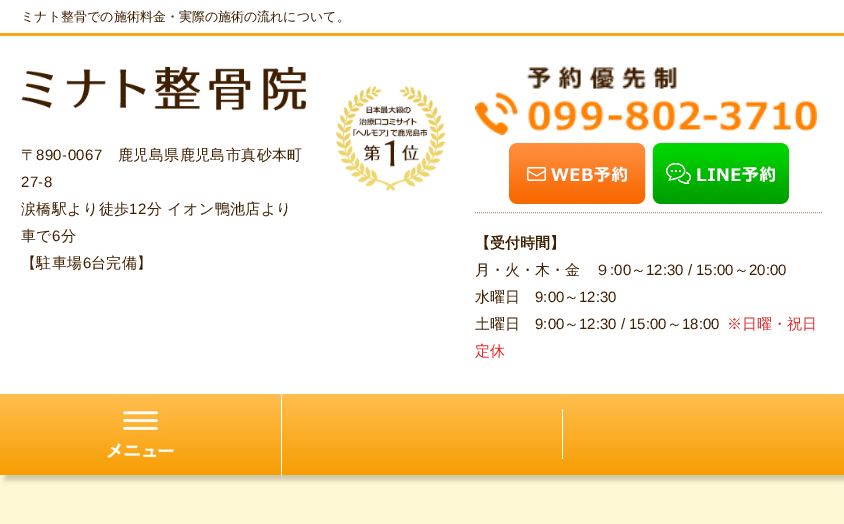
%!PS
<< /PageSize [844 524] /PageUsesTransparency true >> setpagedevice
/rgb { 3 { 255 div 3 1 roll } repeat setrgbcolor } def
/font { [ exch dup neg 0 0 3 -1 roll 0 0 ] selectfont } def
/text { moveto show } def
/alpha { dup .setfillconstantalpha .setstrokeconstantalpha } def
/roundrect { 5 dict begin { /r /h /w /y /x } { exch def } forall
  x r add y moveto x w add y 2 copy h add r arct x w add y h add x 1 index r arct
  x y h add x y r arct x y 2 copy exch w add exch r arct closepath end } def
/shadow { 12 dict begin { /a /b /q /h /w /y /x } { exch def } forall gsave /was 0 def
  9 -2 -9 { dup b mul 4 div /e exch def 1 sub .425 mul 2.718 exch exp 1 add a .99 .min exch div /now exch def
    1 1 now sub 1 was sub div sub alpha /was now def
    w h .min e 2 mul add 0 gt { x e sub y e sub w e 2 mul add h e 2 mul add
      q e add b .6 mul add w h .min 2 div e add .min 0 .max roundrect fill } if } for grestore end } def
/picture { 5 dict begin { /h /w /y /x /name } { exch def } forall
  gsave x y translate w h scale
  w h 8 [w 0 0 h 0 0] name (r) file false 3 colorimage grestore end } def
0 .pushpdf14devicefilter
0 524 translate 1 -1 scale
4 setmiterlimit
255 255 255 rgb
0 0 844 524 rectfill
253 167 23 rgb
0 33 844 3 rectfill
(img_01.rgb) 21 66 285 45 picture
(img_02.rgb) 336 86 109 105 picture
176 144 111 rgb
[1 1] 0 setdash
475 212.5 moveto 348 0 rlineto stroke
(img_03.rgb) 475 66 342 69 picture
(img_04.rgb) 509 143 137 61 picture
(img_05.rgb) 652 143 137 61 picture
255 248 212 rgb
0 475 844 49 rectfill
0 0 0 rgb
5 399 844 81 0 2.5 0.2 shadow
gsave 0 394 moveto 844 0 rlineto 0 81 rlineto -844 0 rlineto closepath clip newpath
<< /ShadingType 2 /ColorSpace /DeviceRGB /Coords [422 394 422 475] /Extend [true true] /Function << /FunctionType 2 /Domain [0 1] /C0 [1 0.745 0.31] /C1 [0.969 0.62 0.008] /N 1 >> >> shfill grestore
255 255 255 rgb
281 394 1 81 rectfill
(img_06.rgb) 107 411 67 47 picture
562 409 1 50 rectfill
/WenQuanYiZenHei-Medium 13 font
63 31 0 rgb
(ミナト整骨での施術料金・実際の施術の流れについて。) 21 21 text
/WenQuanYiZenHei-Medium 15 font
21 160 moveto 0.4 0 (〒) ashow
/LiberationSans-Regular 15 font
36 160 moveto 0.4 0 (890-0067) ashow
/WenQuanYiZenHei-Medium 15 font
118 160 moveto 0.4 0 (鹿児島県鹿児島市真砂本町) ashow
/LiberationSans-Regular 15 font
21 187 moveto 0.4 0 (27-8) ashow
/WenQuanYiZenHei-Medium 15 font
21 214 moveto 0.4 0 (涙橋駅より徒歩) ashow
/LiberationSans-Regular 15 font
129 214 moveto 0.4 0 (12) ashow
/WenQuanYiZenHei-Medium 15 font
147 214 moveto 0.4 0 (分 イオン鴨池店より) ashow
21 241 moveto 0.4 0 (車で) ashow
/LiberationSans-Regular 15 font
52 241 moveto 0.4 0 (6) ashow
/WenQuanYiZenHei-Medium 15 font
61 241 moveto 0.4 0 (分) ashow
21 268 moveto 0.4 0 (【駐車場) ashow
/LiberationSans-Regular 15 font
83 268 moveto 0.4 0 (6) ashow
/WenQuanYiZenHei-Medium 15 font
91 268 moveto 0.4 0 (台完備】) ashow
/WenQuanYiZenHei-Bold 15 font
(【受付時間】) 475 248 text
/WenQuanYiZenHei-Medium 15 font
(月・火・木・金　９) 475 275 text
/LiberationSans-Regular 15 font
(:00) 610 275 text
/WenQuanYiZenHei-Medium 15 font
(～) 631 275 text
/LiberationSans-Regular 15 font
(12:30 / 15:00) 646 275 text
/WenQuanYiZenHei-Medium 15 font
(～) 734 275 text
/LiberationSans-Regular 15 font
(20:00) 749 275 text
/WenQuanYiZenHei-Medium 15 font
(水曜日) 475 302 text
/LiberationSans-Regular 15 font
(9:00) 535 302 text
/WenQuanYiZenHei-Medium 15 font
(～) 564 302 text
/LiberationSans-Regular 15 font
(12:30) 579 302 text
/WenQuanYiZenHei-Medium 15 font
(土曜日) 475 329 text
/LiberationSans-Regular 15 font
(9:00) 535 329 text
/WenQuanYiZenHei-Medium 15 font
(～) 564 329 text
/LiberationSans-Regular 15 font
(12:30 / 15:00) 579 329 text
/WenQuanYiZenHei-Medium 15 font
(～) 667 329 text
/LiberationSans-Regular 15 font
(18:00) 682 329 text
/WenQuanYiZenHei-Medium 15 font
223 43 43 rgb
(※日曜・祝日) 727 329 text
(定休) 475 356 text
.poppdf14devicefilter showpage
